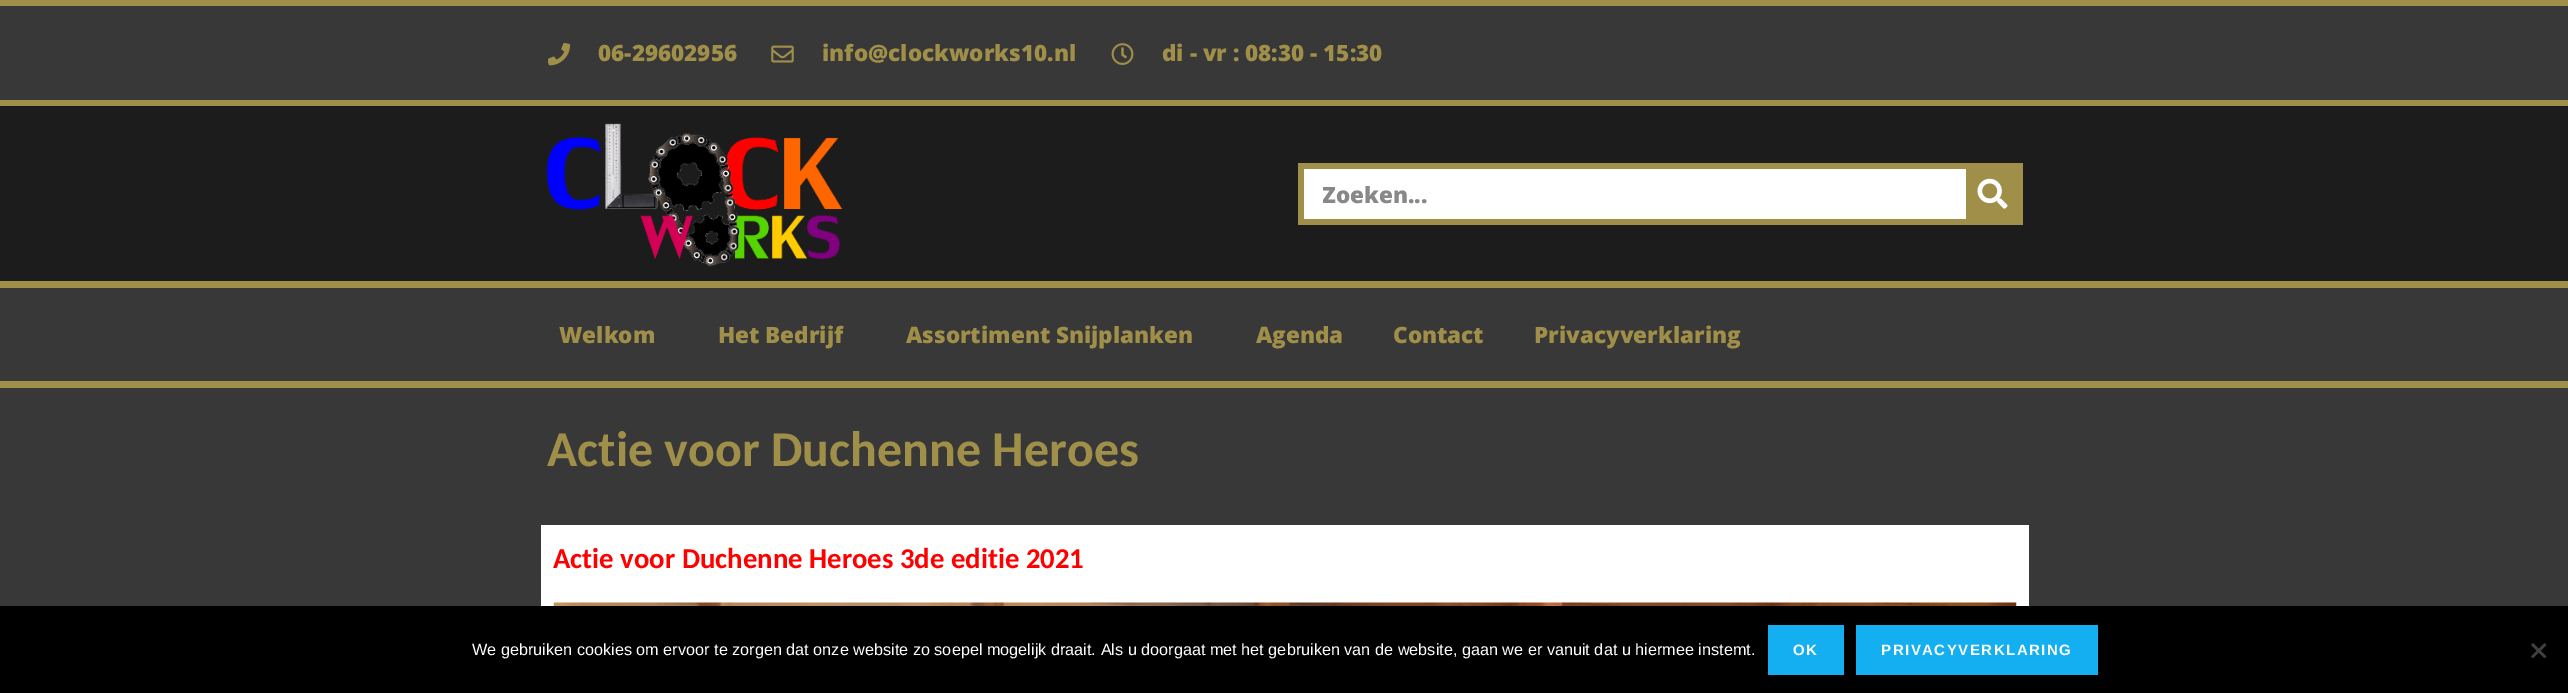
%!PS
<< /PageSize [2568 693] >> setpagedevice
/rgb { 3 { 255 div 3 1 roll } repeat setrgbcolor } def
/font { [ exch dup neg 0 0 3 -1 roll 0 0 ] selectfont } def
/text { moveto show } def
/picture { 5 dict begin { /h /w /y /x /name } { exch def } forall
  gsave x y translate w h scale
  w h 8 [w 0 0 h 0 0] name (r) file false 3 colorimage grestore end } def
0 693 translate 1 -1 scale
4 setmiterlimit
56 56 56 rgb
0 0 2568 693 rectfill
160 143 73 rgb
0 0 2568 6 rectfill
0 100 2568 6 rectfill
(img_01.rgb) 548 42 22 24 picture
(img_02.rgb) 771 45 23 18 picture
(img_03.rgb) 1111 43 23 22 picture
28 28 28 rgb
0 106 2568 175 rectfill
(img_04.rgb) 546 123 297 144 picture
255 255 255 rgb
1304 169 662 50 rectfill
160 143 73 rgb
1298 163 725 6 rectfill
1298 219 725 6 rectfill
1298 163 6 62 rectfill
1966 169 57 50 rectfill
(img_05.rgb) 1977 178 31 31 picture
0 281 2568 7 rectfill
0 381 2568 7 rectfill
255 255 255 rgb
541 525 1488 81 rectfill
(img_06.rgb) 553 602 1464 4 picture
0 0 0 rgb
0 606 2568 87 rectfill
19 175 240 rgb
1768 625 76 50 rectfill
1856 625 242 50 rectfill
64 64 64 rgb
2544.5 643 moveto 2 2 rlineto -13.5 13 rlineto -2 -1.5 rlineto closepath fill
2531 645 moveto 2 -2 rlineto 13.5 13.5 rlineto -2 1.5 rlineto closepath fill
/OpenSans-ExtraBold 22.5 font
160 143 73 rgb
(06-29602956) 598 61 text
(info@clockworks10.nl) 822 61 text
(di - vr : 08:30 - 15:30) 1162 61 text
gsave
1323 179 625 30 rectclip
136 136 136 rgb
(Zoeken...) 1322 203 text
grestore
(Welkom) 559 343 text
(Het Bedrijf) 718 343 text
(Assortiment Snijplanken) 906 343 text
(Agenda) 1256 343 text
(Contact) 1393 343 text
(Privacyverklaring) 1534 343 text
/Carlito-Bold 50 font
(Actie voor Duchenne Heroes) 547 466 text
/Carlito-Bold 28.75 font
255 0 0 rgb
(Actie voor Duchenne Heroes 3de editie 2021) 553 568 text
/LiberationSans-Regular 16.25 font
255 255 255 rgb
(We gebruiken cookies om ervoor te zorgen dat onze website zo soepel mogelijk draait. Als u doorgaat met het gebruiken van de website, gaan we er vanuit dat u hiermee instemt.) 472 655 text
/LiberationSans-Bold 15 font
1793 655 moveto 1.5 0 (OK) ashow
1881 655 moveto 1.5 0 (PRIVACYVERKLARING) ashow
showpage
